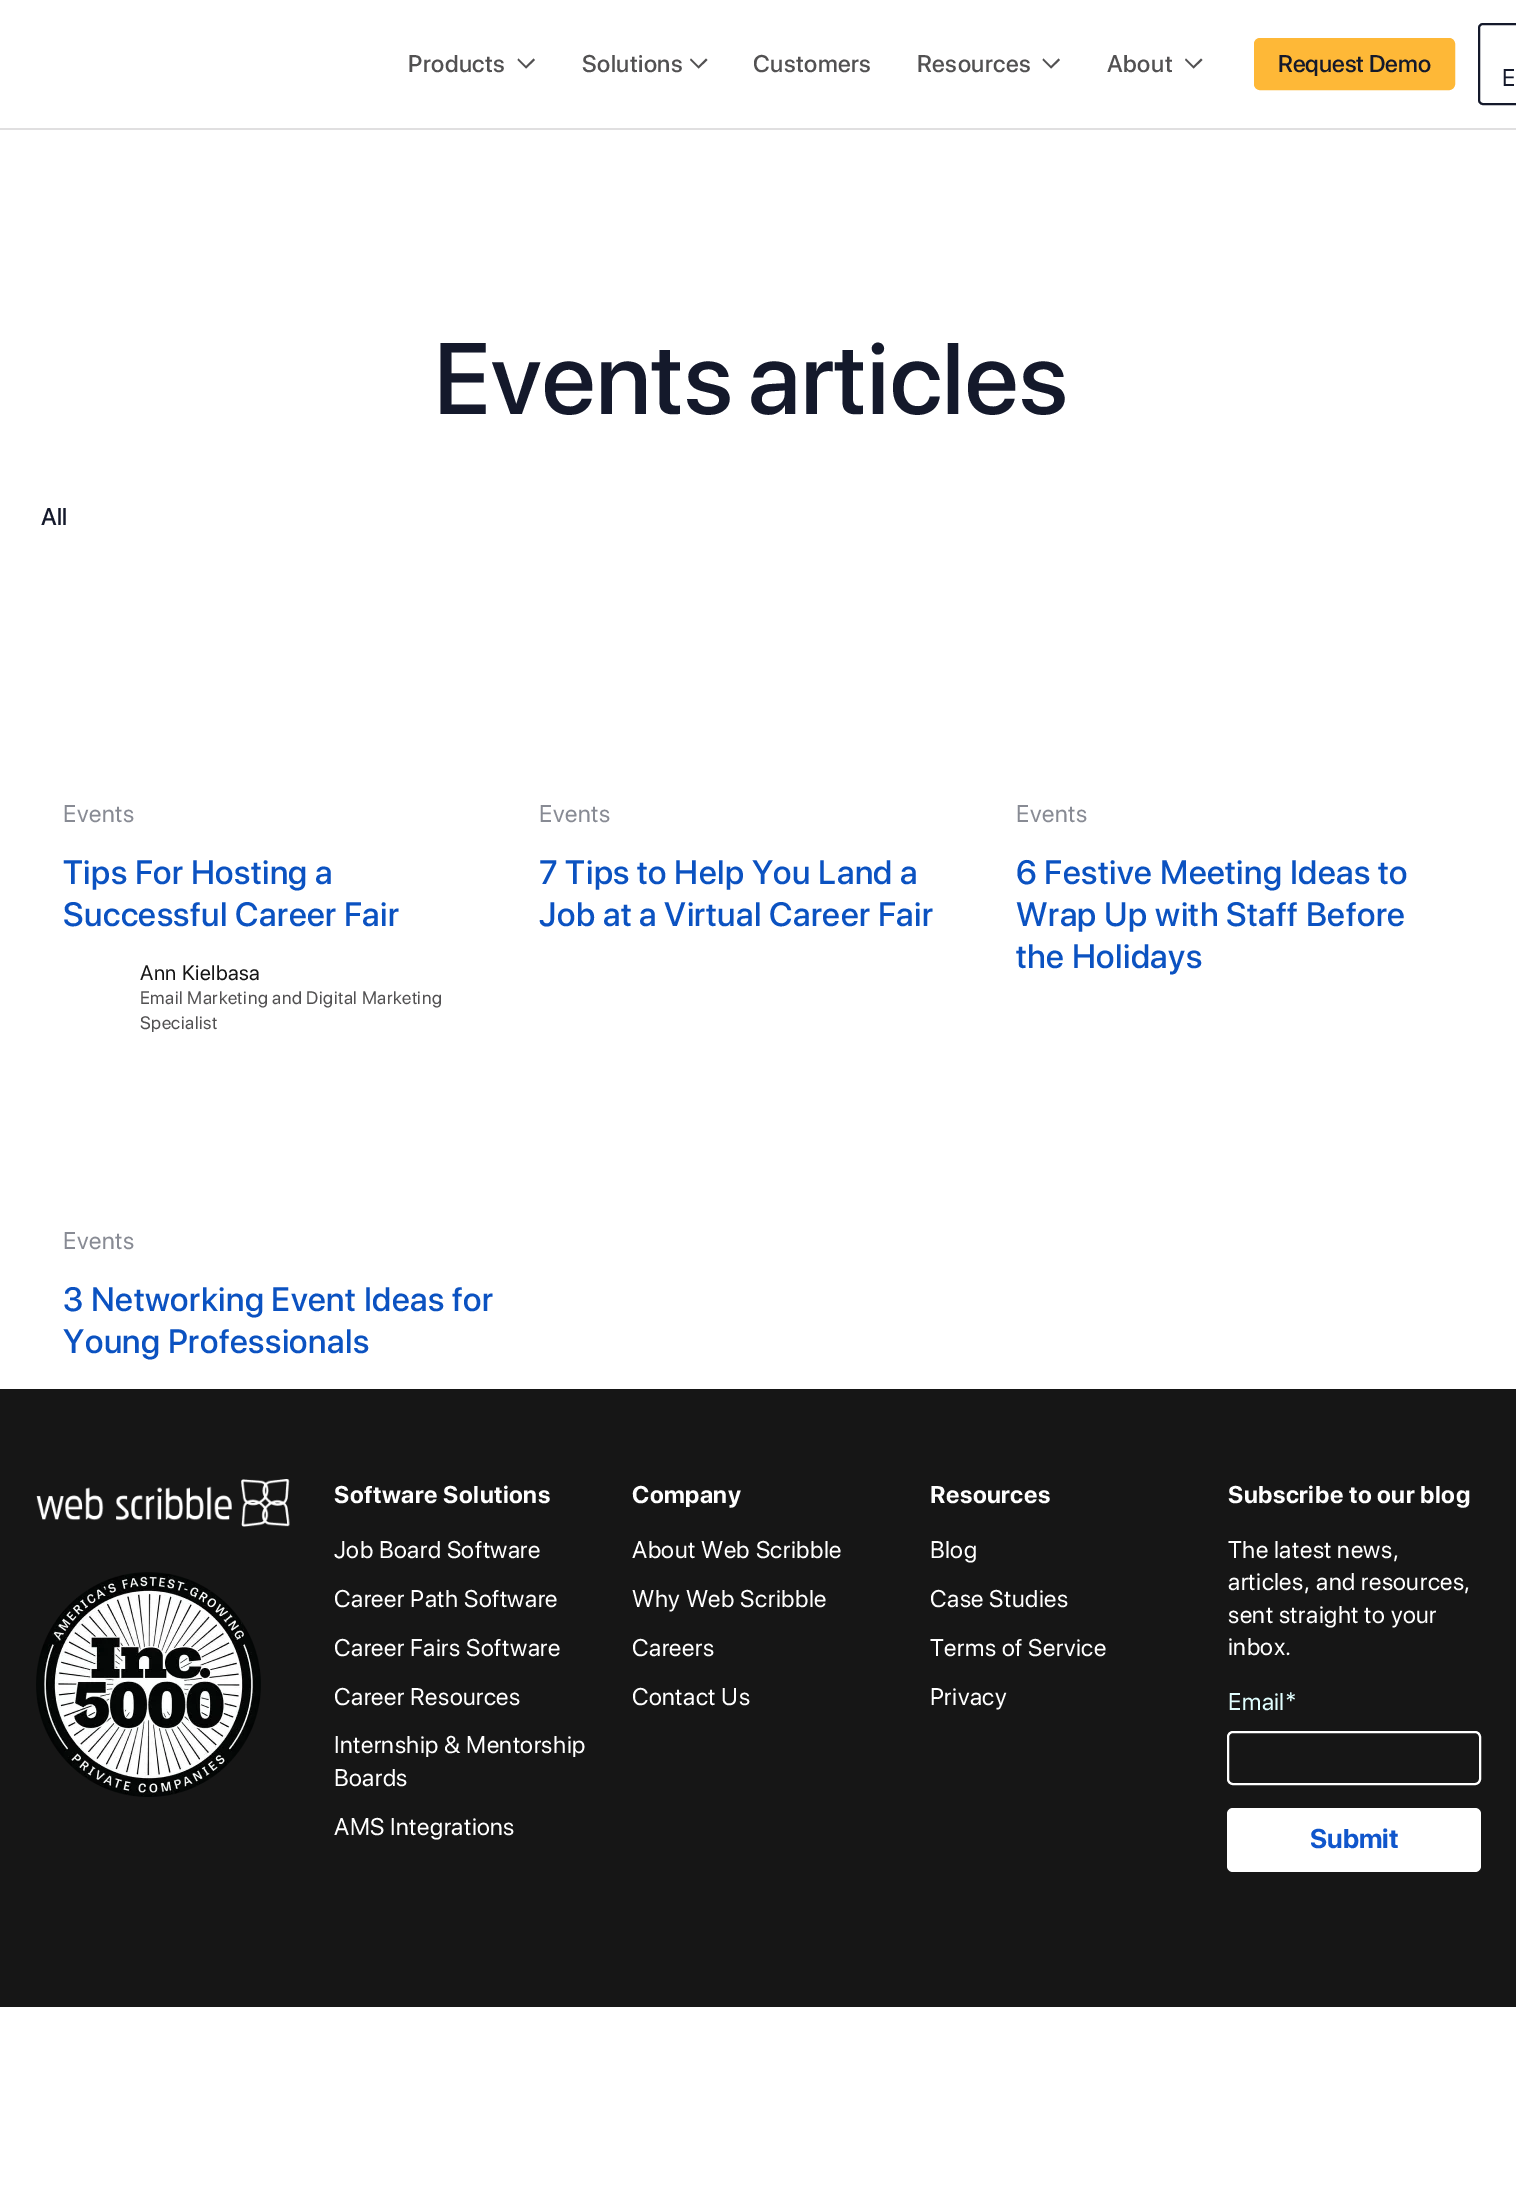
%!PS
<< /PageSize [1516 2194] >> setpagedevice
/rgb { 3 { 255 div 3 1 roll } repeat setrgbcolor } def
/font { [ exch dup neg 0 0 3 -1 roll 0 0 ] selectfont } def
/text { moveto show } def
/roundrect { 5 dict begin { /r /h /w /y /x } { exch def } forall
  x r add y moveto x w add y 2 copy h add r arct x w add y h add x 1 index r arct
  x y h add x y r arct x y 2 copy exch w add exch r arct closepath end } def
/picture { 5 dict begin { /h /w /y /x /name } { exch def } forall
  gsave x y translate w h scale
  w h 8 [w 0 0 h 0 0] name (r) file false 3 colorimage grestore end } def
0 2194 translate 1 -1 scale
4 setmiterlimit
255 255 255 rgb
0 0 1516 2194 rectfill
224 223 224 rgb
0 128 1516 2 rectfill
82 81 82 rgb
517.5 60 moveto 1 -1.5 rlineto 7.5 7.5 rlineto 7.5 -7.5 rlineto 1.5 1.5 rlineto -9 8.5 rlineto closepath fill
690 60 moveto 1 -1.5 rlineto 7.5 7.5 rlineto 7.5 -7.5 rlineto 1.5 1.5 rlineto -9 8.5 rlineto closepath fill
1042.5 60 moveto 1 -1.5 rlineto 7.5 7.5 rlineto 7.5 -7.5 rlineto 1.5 1.5 rlineto -9 8.5 rlineto closepath fill
1185 60 moveto 1 -1.5 rlineto 7.5 7.5 rlineto 7.5 -7.5 rlineto 1.5 1.5 rlineto -9 8.5 rlineto closepath fill
254 184 55 rgb
1255 39 199 50 5 roundrect gsave fill grestore
2 setlinewidth
stroke
20 25 43 rgb
1479 24 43 80 4 roundrect stroke
22 22 22 rgb
0 1389 1516 618 rectfill
(img_01.rgb) 36 1479 254 48 picture
(img_02.rgb) 36 1572 225 225 picture
255 255 255 rgb
1228 1732 252 52 5 roundrect stroke
1227 1808 254 64 6 roundrect fill
/SFProDisplay-Medium 24 font
82 81 82 rgb
408 72 moveto 0.5 0 (Products) ashow
582 72 moveto 0.5 0 (Solutions) ashow
753 72 moveto 0.5 0 (Customers) ashow
917 72 moveto 0.5 0 (Resources) ashow
1107 72 moveto 0.5 0 (About) ashow
20 25 43 rgb
(Request Demo) 1278 72 text
/SFProDisplay-Regular 24 font
(E) 1502 86 text
/SFProDisplay-Medium 101 font
434 414 moveto 0.5 0 (Events) ashow
748 414 moveto 0.5 0 (articles) ashow
/SFProDisplay-Medium 24 font
(All) 41 525 text
/SFProDisplay-Regular 24 font
136 139 148 rgb
63 822 moveto 0.5 0 (Events) ashow
/SFProDisplay-Medium 33.6 font
11 82 193 rgb
63 884 moveto 0.5 0 (Tips For Hosting a) ashow
63 926 moveto 0.5 0 (Successful Career Fair) ashow
/SFProDisplay-Regular 21 font
22 22 22 rgb
140 980 moveto 0.5 0 (Ann Kielbasa) ashow
/SFProDisplay-Regular 18 font
82 81 82 rgb
140 1004 moveto 0.5 0 (Email Marketing and Digital Marketing) ashow
140 1029 moveto 0.5 0 (Specialist) ashow
/SFProDisplay-Regular 24 font
136 139 148 rgb
539 822 moveto 0.5 0 (Events) ashow
/SFProDisplay-Medium 33.6 font
11 82 193 rgb
539 884 moveto 0.5 0 (7 Tips to Help You Land a) ashow
539 926 moveto 0.5 0 (Job at a Virtual Career Fair) ashow
/SFProDisplay-Regular 24 font
136 139 148 rgb
1016 822 moveto 0.5 0 (Events) ashow
/SFProDisplay-Medium 33.6 font
11 82 193 rgb
1016 884 moveto 0.5 0 (6 Festive Meeting Ideas to) ashow
1016 926 moveto 0.5 0 (Wrap Up with Staff Before) ashow
1016 968 moveto 0.5 0 (the Holidays) ashow
/SFProDisplay-Regular 24 font
136 139 148 rgb
63 1249 moveto 0.5 0 (Events) ashow
/SFProDisplay-Medium 33.6 font
11 82 193 rgb
63 1311 moveto 0.5 0 (3 Networking Event Ideas for) ashow
63 1353 moveto 0.5 0 (Young Professionals) ashow
/SFProDisplay-Bold 24 font
255 255 255 rgb
334 1503 moveto 0.5 0 (Software Solutions) ashow
/SFProDisplay-Regular 24 font
334 1558 moveto 0.5 0 (Job Board Software) ashow
334 1607 moveto 0.5 0 (Career Path Software) ashow
334 1656 moveto 0.5 0 (Career Fairs Software) ashow
334 1705 moveto 0.5 0 (Career Resources) ashow
334 1753 moveto 0.5 0 (Internship & Mentorship) ashow
334 1786 moveto 0.5 0 (Boards) ashow
334 1835 moveto 0.5 0 (AMS Integrations) ashow
/SFProDisplay-Bold 24 font
632 1503 moveto 0.5 0 (Company) ashow
/SFProDisplay-Regular 24 font
632 1558 moveto 0.5 0 (About Web Scribble) ashow
632 1607 moveto 0.5 0 (Why Web Scribble) ashow
632 1656 moveto 0.5 0 (Careers) ashow
632 1705 moveto 0.5 0 (Contact Us) ashow
/SFProDisplay-Bold 24 font
930 1503 moveto 0.5 0 (Resources) ashow
/SFProDisplay-Regular 24 font
930 1558 moveto 0.5 0 (Blog) ashow
930 1607 moveto 0.5 0 (Case Studies) ashow
930 1656 moveto 0.5 0 (Terms of Service) ashow
930 1705 moveto 0.5 0 (Privacy) ashow
/SFProDisplay-Bold 24 font
1228 1503 moveto 0.5 0 (Subscribe to our blog) ashow
/SFProDisplay-Regular 24 font
1228 1558 moveto 0.5 0 (The latest news,) ashow
1228 1590 moveto 0.5 0 (articles, and resources,) ashow
1228 1623 moveto 0.5 0 (sent straight to your) ashow
1228 1655 moveto 0.5 0 (inbox.) ashow
225 255 255 rgb
1228 1710 moveto 0.5 0 (Email*) ashow
/SFProDisplay-Bold 27 font
16 86 204 rgb
(Submit) 1310 1848 text
showpage
